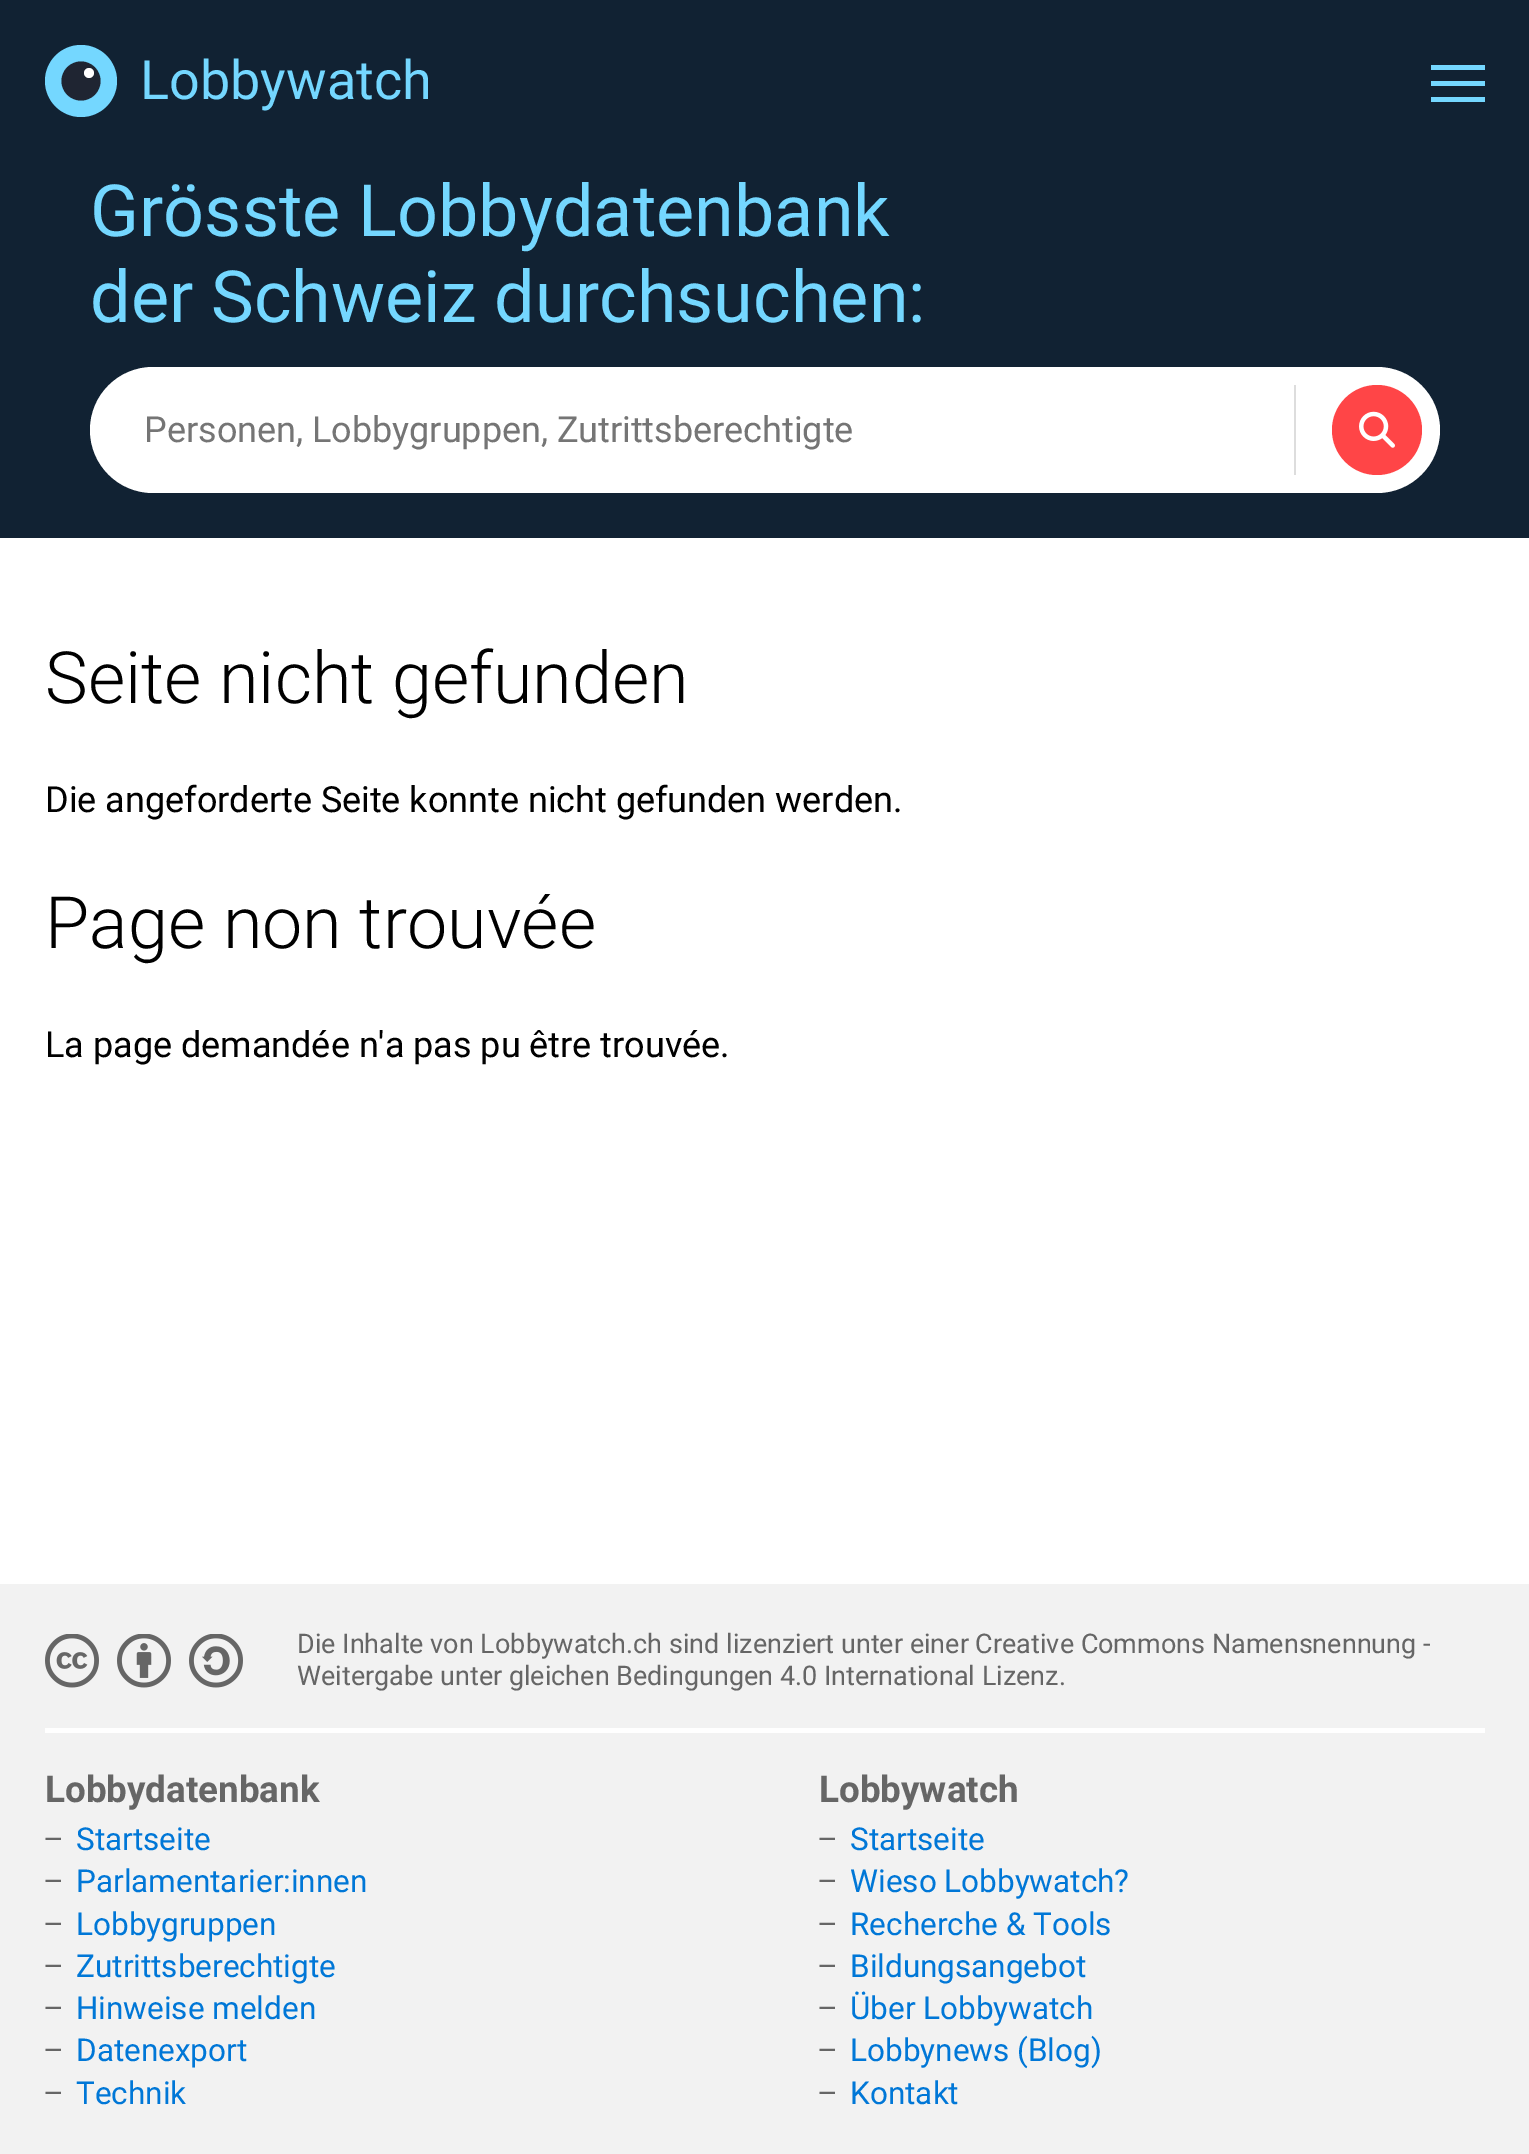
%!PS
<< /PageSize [1529 2154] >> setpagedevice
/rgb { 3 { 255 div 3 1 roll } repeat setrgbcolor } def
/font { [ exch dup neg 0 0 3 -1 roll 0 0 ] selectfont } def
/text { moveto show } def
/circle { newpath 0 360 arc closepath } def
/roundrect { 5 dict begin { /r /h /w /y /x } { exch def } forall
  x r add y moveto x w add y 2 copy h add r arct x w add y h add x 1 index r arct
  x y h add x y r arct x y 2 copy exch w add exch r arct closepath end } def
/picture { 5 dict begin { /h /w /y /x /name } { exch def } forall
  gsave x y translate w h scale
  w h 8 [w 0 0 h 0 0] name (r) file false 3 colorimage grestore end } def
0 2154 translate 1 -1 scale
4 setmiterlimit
255 255 255 rgb
0 0 1529 2154 rectfill
17 34 51 rgb
0 0 1529 538 rectfill
116 215 255 rgb
81 81 36 circle fill
31 37 50 rgb
81 81 19.5 circle fill
255 255 255 rgb
89 73 5 circle fill
116 215 255 rgb
1431 65 54 5 rectfill
1431 81 54 5 rectfill
1431 97 54 5 rectfill
255 255 255 rgb
90 367 1350 126 63 roundrect fill
221 221 221 rgb
1294 385 2 90 rectfill
255 69 71 rgb
1377 430 45 circle fill
(img_01.rgb) 1359 411 36 37 picture
242 242 242 rgb
0 1584 1529 570 rectfill
(img_02.rgb) 45 1634 198 54 picture
255 255 255 rgb
45 1728 1440 5 rectfill
/Roboto-Regular 54 font
116 215 255 rgb
(Lobbywatch) 140 99 text
/Roboto-Regular 72 font
(Grösste Lobbydatenbank) 90 236 text
(der Schweiz durchsuchen:) 90 322 text
/Roboto-Regular 36 font
117 117 117 rgb
(Personen, Lobbygruppen, Zutrittsberechtigte) 144 442 text
/Roboto-Light 72 font
0 0 0 rgb
(Seite nicht gefunden) 45 703 text
/Roboto-Regular 36 font
(Die angeforderte Seite konnte nicht gefunden werden.) 45 812 text
/Roboto-Light 72 font
(Page non trouvée) 45 948 text
/Roboto-Regular 36 font
(La page demandée n'a pas pu être trouvée.) 45 1057 text
/Roboto-Regular 27 font
102 102 102 rgb
(Die Inhalte von Lobbywatch.ch sind lizenziert unter einer Creative Commons Namensnennung -) 297 1653 text
(Weitergabe unter gleichen Bedingungen 4.0 International Lizenz.) 297 1685 text
/Roboto-Bold 36.75 font
(Lobbydatenbank) 45 1802 text
/Roboto-Regular 31.5 font
(–) 43 1850 text
0 119 215 rgb
(Startseite) 76 1850 text
102 102 102 rgb
(–) 43 1892 text
0 119 215 rgb
(Parlamentarier:innen) 76 1892 text
102 102 102 rgb
(–) 43 1935 text
0 119 215 rgb
(Lobbygruppen) 76 1935 text
102 102 102 rgb
(–) 43 1977 text
0 119 215 rgb
(Zutrittsberechtigte) 76 1977 text
102 102 102 rgb
(–) 43 2019 text
0 119 215 rgb
(Hinweise melden) 76 2019 text
102 102 102 rgb
(–) 43 2061 text
0 119 215 rgb
(Datenexport) 76 2061 text
102 102 102 rgb
(–) 43 2104 text
0 119 215 rgb
(Technik) 76 2104 text
/Roboto-Bold 36.75 font
102 102 102 rgb
(Lobbywatch) 819 1802 text
/Roboto-Regular 31.5 font
(–) 817 1850 text
0 119 215 rgb
(Startseite) 850 1850 text
102 102 102 rgb
(–) 817 1892 text
0 119 215 rgb
(Wieso Lobbywatch?) 850 1892 text
102 102 102 rgb
(–) 817 1935 text
0 119 215 rgb
(Recherche & Tools) 850 1935 text
102 102 102 rgb
(–) 817 1977 text
0 119 215 rgb
(Bildungsangebot) 850 1977 text
102 102 102 rgb
(–) 817 2019 text
0 119 215 rgb
(Über Lobbywatch) 850 2019 text
102 102 102 rgb
(–) 817 2061 text
0 119 215 rgb
(Lobbynews \(Blog\)) 850 2061 text
102 102 102 rgb
(–) 817 2104 text
0 119 215 rgb
(Kontakt) 850 2104 text
showpage
